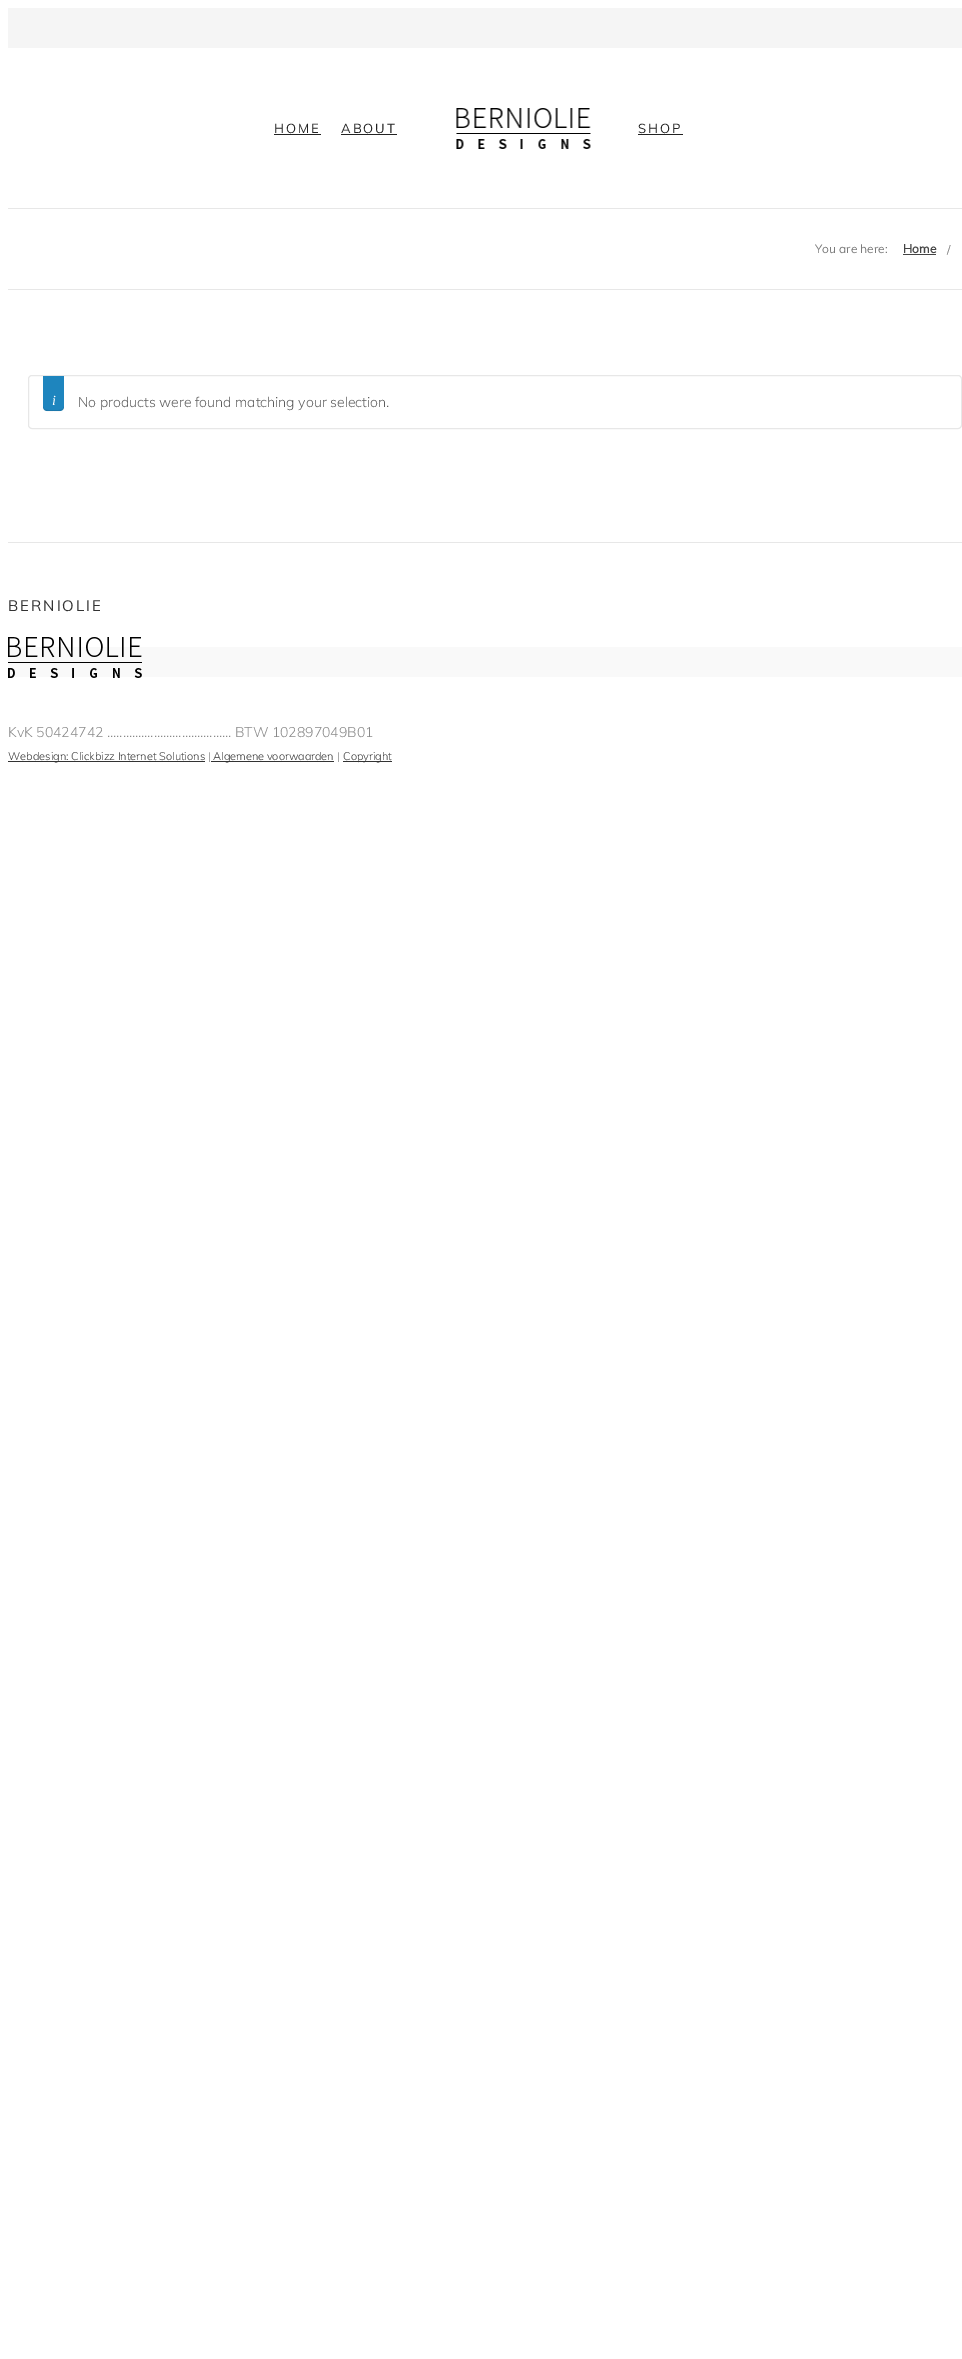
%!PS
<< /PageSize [962 2359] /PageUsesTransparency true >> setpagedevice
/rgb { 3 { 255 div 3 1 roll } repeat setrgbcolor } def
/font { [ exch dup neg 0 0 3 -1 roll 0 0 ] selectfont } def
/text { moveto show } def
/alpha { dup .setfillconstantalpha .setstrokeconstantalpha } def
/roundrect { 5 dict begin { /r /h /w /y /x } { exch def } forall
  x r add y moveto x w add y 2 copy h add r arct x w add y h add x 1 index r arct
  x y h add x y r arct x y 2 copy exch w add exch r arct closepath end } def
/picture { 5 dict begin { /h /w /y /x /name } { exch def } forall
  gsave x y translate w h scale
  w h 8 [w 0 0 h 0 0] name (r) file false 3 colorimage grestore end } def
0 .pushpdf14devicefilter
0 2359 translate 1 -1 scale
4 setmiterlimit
255 255 255 rgb
0 0 962 2359 rectfill
245 245 245 rgb
8 8 954 40 rectfill
231 231 231 rgb
8 208 954 1 rectfill
34 34 34 rgb
274 134 47 1 rectfill
341 134 56 1 rectfill
(img_01.rgb) 456 108 135 41 picture
638 134 45 1 rectfill
231 231 231 rgb
8 289 954 1 rectfill
68 68 68 rgb
903 254 33 1 rectfill
231 231 231 rgb
28.5 375.5 933 53 3.5 roundrect stroke
30 133 190 rgb
43 376 moveto 21 0 rlineto 0 31 rlineto 0 2 -2 4 -4 4 rcurveto -13 0 rlineto -2 0 -4 -2 -4 -4 rcurveto closepath fill
0.1 alpha
0 0 0 rgb
43 406 moveto 0 6.5 5.5 5 10.5 5 rcurveto 5 0 10.5 1.5 10.5 -5 rcurveto 0 5 -7.5 4 -10.5 4 rcurveto -3 0 -10.5 1 -10.5 -4 rcurveto closepath fill
1 alpha
231 231 231 rgb
8 542 954 1 rectfill
249 249 249 rgb
8 647 954 30 rectfill
(img_02.rgb) 8 637 134 41 picture
51 51 51 rgb
8 761 197 1 rectfill
211 761 123 1 rectfill
343 761 49 1 rectfill
/Muli-Regular 13 font
34 34 34 rgb
274 133 moveto 2 0 (HOME) ashow
341 133 moveto 2 0 (ABOUT) ashow
638 133 moveto 2 0 (SHOP) ashow
/Muli-Regular 12 font
124 124 124 rgb
(You are here:) 815 253 text
/Muli-Bold 12 font
68 68 68 rgb
(Home) 903 253 text
/Muli-Regular 12 font
124 124 124 rgb
(/) 947 254 text
/LiberationSerif-Italic 14 font
255 255 255 rgb
(i) 52 405 text
/Muli-Light 14 font
94 94 94 rgb
(No products were found matching your selection.) 78 407 text
/Muli-Regular 15 font
51 51 51 rgb
8 611 moveto 2 0 (BERNIOLIE) ashow
/Muli-Light 14 font
137 137 137 rgb
(KvK 50424742 ........................................ BTW 102897049B01) 8 737 text
/Muli-Light 11 font
51 51 51 rgb
(Webdesign: Clickbizz Internet Solutions) 8 760 text
137 137 137 rgb
(|) 208 760 text
51 51 51 rgb
(Algemene voorwaarden) 213 760 text
137 137 137 rgb
(|) 337 760 text
51 51 51 rgb
(Copyright) 343 760 text
.poppdf14devicefilter showpage
